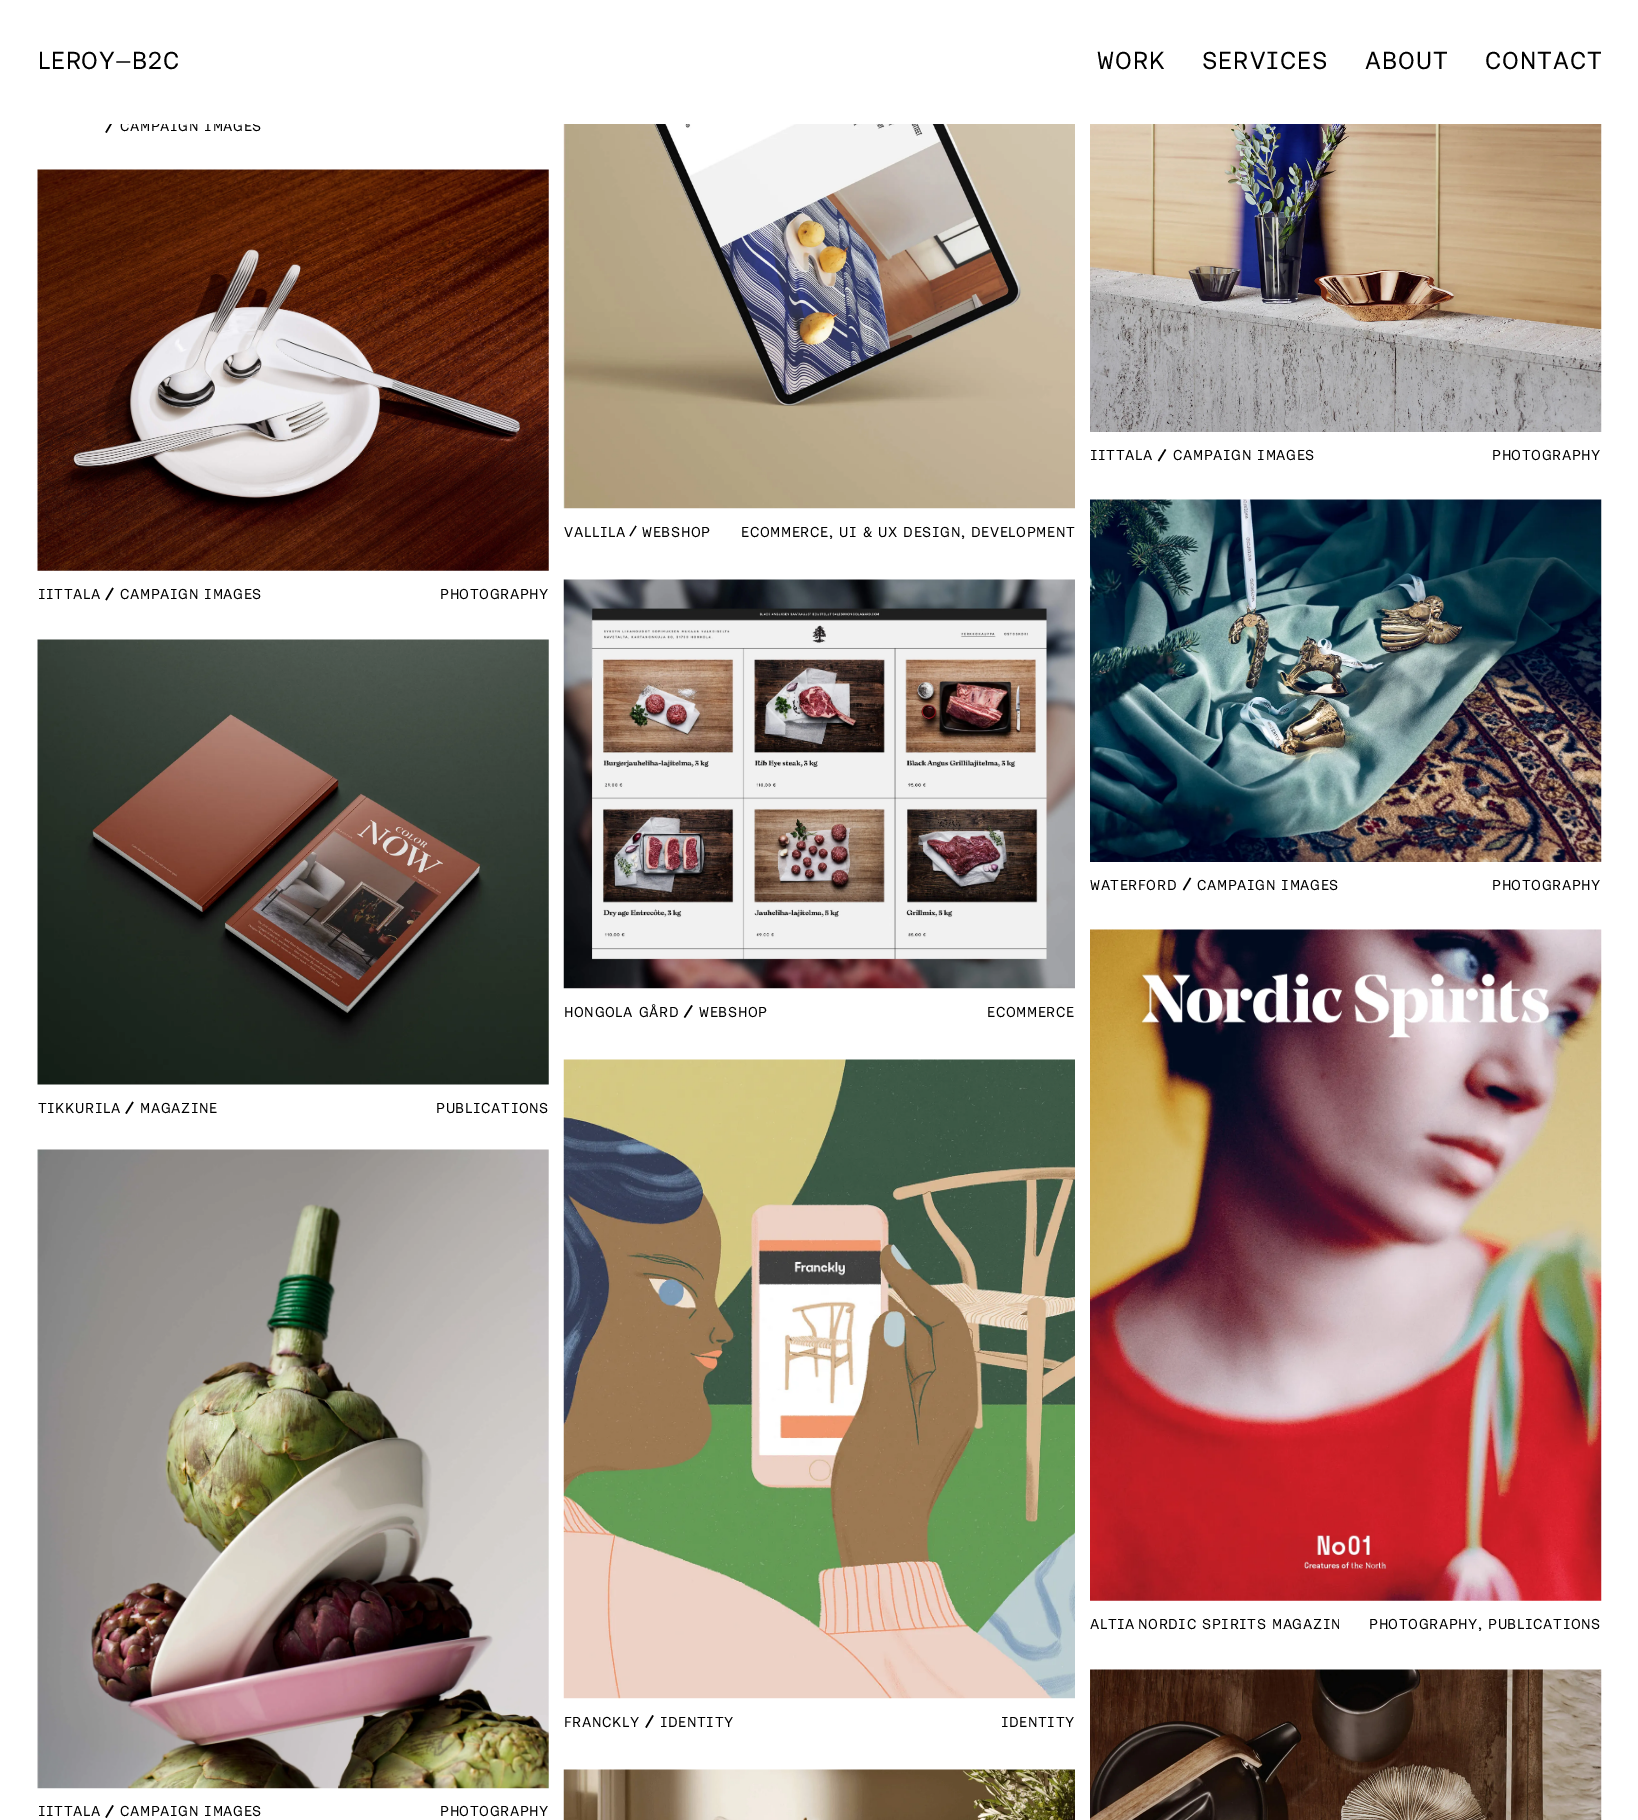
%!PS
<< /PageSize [1638 1820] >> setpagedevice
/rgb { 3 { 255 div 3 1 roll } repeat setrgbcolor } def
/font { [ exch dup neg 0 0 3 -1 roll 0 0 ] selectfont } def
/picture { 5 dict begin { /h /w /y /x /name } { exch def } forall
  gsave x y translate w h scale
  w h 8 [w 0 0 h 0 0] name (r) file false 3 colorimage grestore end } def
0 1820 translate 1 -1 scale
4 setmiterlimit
255 255 255 rgb
0 0 1638 1820 rectfill
0 0 0 rgb
1.5 setlinewidth
106 132.5 moveto 7 -12 rlineto stroke
(img_01.rgb) 1090 124 512 308 picture
1158.5 461 moveto 7 -11.5 rlineto stroke
(img_02.rgb) 563 124 512 385 picture
1.2 setlinewidth
630 536 moveto 6 -10 rlineto stroke
(img_03.rgb) 37 169 512 402 picture
1.5 setlinewidth
106 600 moveto 7 -12 rlineto stroke
(img_04.rgb) 1090 499 512 363 picture
1183.5 890 moveto 7 -12 rlineto stroke
(img_05.rgb) 563 579 512 410 picture
684.5 1017.5 moveto 7.5 -12 rlineto stroke
(img_06.rgb) 37 639 512 446 picture
126 1113.5 moveto 7 -11.5 rlineto stroke
(img_07.rgb) 1090 929 512 672 picture
(img_08.rgb) 563 1059 512 640 picture
646 1727.5 moveto 7 -12 rlineto stroke
(img_09.rgb) 1090 1669 512 151 picture
(img_10.rgb) 37 1149 512 640 picture
106 1817.5 moveto 7 -12 rlineto stroke
(img_11.rgb) 563 1769 512 51 picture
/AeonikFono-Regular 24.5 font
38 69 moveto 0.6 0 (LEROY—B2C) ashow
1097 69 moveto 1 0 (WORK) ashow
1202 69 moveto 1 0 (SERVICES) ashow
1365 69 moveto 1 0 (ABOUT) ashow
1485 69 moveto 1 0 (CONTACT) ashow
/AeonikFono-Regular 14.4 font
120 131 moveto 0.6 0 (CAMPAIGN IMAGES) ashow
255 255 255 rgb
110 120 151 4 rectfill
0 0 0 rgb
1090 460 moveto 0.6 0 (IITTALA) ashow
1173 460 moveto 0.6 0 (CAMPAIGN IMAGES) ashow
1492 460 moveto 0.6 0 (PHOTOGRAPHY) ashow
564 537 moveto 0.6 0 (VALLILA) ashow
642 537 moveto 0.6 0 (WEBSHOP) ashow
741 537 moveto 0.6 0 (ECOMMERCE) ashow
829 537 moveto 1 0 (,) ashow
839 537 moveto 0.6 0 (UI & UX DESIGN) ashow
961 537 moveto 1 0 (,) ashow
971 537 moveto 0.6 0 (DEVELOPMENT) ashow
38 599 moveto 0.6 0 (IITTALA) ashow
120 599 moveto 0.6 0 (CAMPAIGN IMAGES) ashow
440 599 moveto 0.6 0 (PHOTOGRAPHY) ashow
1090 890 moveto 0.6 0 (WATERFORD) ashow
1197 890 moveto 0.6 0 (CAMPAIGN IMAGES) ashow
1492 890 moveto 0.6 0 (PHOTOGRAPHY) ashow
564 1017 moveto 0.6 0 (HONGOLA GÅRD) ashow
699 1017 moveto 0.6 0 (WEBSHOP) ashow
987 1017 moveto 0.6 0 (ECOMMERCE) ashow
38 1113 moveto 0.6 0 (TIKKURILA) ashow
140 1113 moveto 0.6 0 (MAGAZINE) ashow
436 1113 moveto 0.6 0 (PUBLICATIONS) ashow
1090 1629 moveto 0.6 0 (ALTIA) ashow
gsave
1090 1614 249 20 rectclip
1138 1629 moveto 0.6 0 (NORDIC SPIRITS MAGAZIN) ashow
grestore
1369 1629 moveto 0.6 0 (PHOTOGRAPHY) ashow
1478 1629 moveto 1 0 (,) ashow
1488 1629 moveto 0.6 0 (PUBLICATIONS) ashow
564 1727 moveto 0.6 0 (FRANCKLY) ashow
660 1727 moveto 0.6 0 (IDENTITY) ashow
1001 1727 moveto 0.6 0 (IDENTITY) ashow
38 1816 moveto 0.6 0 (IITTALA) ashow
120 1816 moveto 0.6 0 (CAMPAIGN IMAGES) ashow
440 1816 moveto 0.6 0 (PHOTOGRAPHY) ashow
showpage
